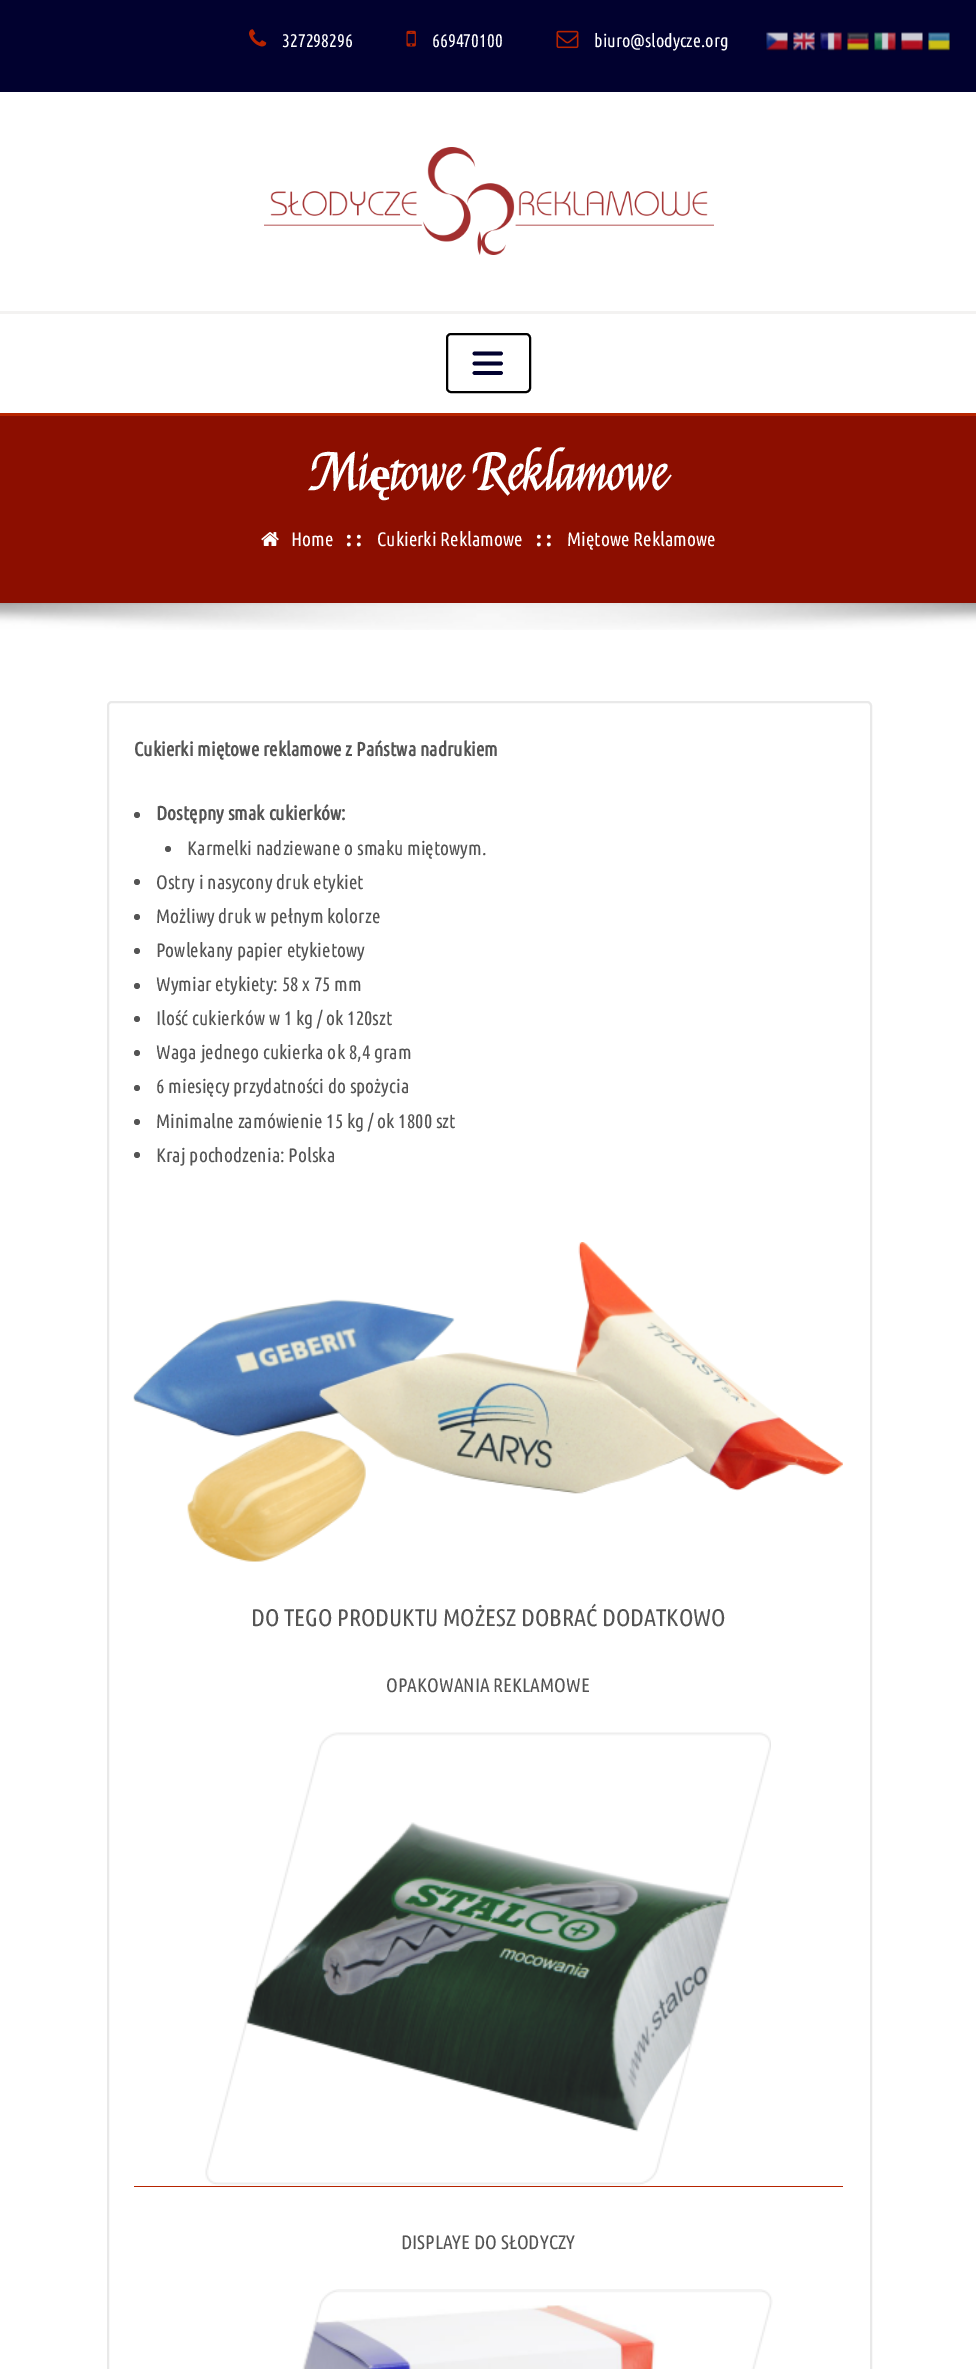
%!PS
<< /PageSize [976 2369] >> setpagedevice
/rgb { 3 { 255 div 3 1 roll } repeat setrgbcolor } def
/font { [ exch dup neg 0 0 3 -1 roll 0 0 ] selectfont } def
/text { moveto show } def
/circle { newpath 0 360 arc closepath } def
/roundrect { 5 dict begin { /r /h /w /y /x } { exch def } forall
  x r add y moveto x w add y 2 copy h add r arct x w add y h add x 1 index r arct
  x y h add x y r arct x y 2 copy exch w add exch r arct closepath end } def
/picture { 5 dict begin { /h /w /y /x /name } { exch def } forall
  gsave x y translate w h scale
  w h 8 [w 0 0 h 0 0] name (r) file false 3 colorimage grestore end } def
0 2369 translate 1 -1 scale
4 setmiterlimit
255 255 255 rgb
0 0 976 2369 rectfill
1 1 47 rgb
0 0 976 92 rectfill
(img_01.rgb) 249 29 18 18 picture
(img_02.rgb) 406 30 10 17 picture
(img_03.rgb) 556 30 23 19 picture
(img_04.rgb) 765 32 24 19 picture
(img_05.rgb) 792 32 24 19 picture
(img_06.rgb) 819 32 24 19 picture
(img_07.rgb) 846 32 24 19 picture
(img_08.rgb) 873 32 24 19 picture
(img_09.rgb) 900 32 24 19 picture
(img_10.rgb) 927 32 24 19 picture
(img_11.rgb) 264 147 450 108 picture
243 242 241 rgb
0 311 976 3 rectfill
183 36 0 rgb
0 413 976 3 rectfill
0 0 0 rgb
2 setlinewidth
447 334 83 58 4 roundrect stroke
1 1 47 rgb
3.7 setlinewidth
1 setlinecap
474.5 353.5 moveto 26.5 0 rlineto 474.5 363.5 moveto 26.5 0 rlineto 474.5 373 moveto 26.5 0 rlineto stroke
140 14 0 rgb
0 416 976 187 rectfill
(img_12.rgb) 261 532 18 14 picture
(img_13.rgb) 0 603 976 27 picture
233 233 233 rgb
2 setlinewidth
0 setlinecap
108 702 763 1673 4 roundrect stroke
84 84 84 rgb
137 815 3 circle fill
168 849 3 circle fill
137 882 3 circle fill
137 917 3 circle fill
137 951 3 circle fill
137 986 3 circle fill
137 1019 3 circle fill
137 1053 3 circle fill
137 1088 3 circle fill
137 1122 3 circle fill
137 1155 3 circle fill
(img_14.rgb) 133 1242 710 320 picture
(img_15.rgb) 205 1732 566 454 picture
183 36 0 rgb
134 2186 709 1 rectfill
(img_16.rgb) 302 2289 471 80 picture
/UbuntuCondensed-Regular 18.25 font
255 255 255 rgb
(327298296) 282 47 text
(669470100) 432 47 text
(biuro@slodycze.org) 594 47 text
/Felipa-Bold 48.75 font
(Mi) 310 490 text
/LiberationSerif-Bold 48.75 font
(ę) 369 490 text
/Felipa-Bold 48.75 font
(towe Reklamowe) 390 490 text
/UbuntuCondensed-Regular 19.5 font
(Home) 291 546 text
/LiberationSerif-Bold 24 font
345 546 moveto 2 0 (::) ashow
/UbuntuCondensed-Regular 19.5 font
(Cukierki Reklamowe) 377 546 text
/LiberationSerif-Bold 24 font
535 546 moveto 2 0 (::) ashow
/UbuntuCondensed-Regular 19.5 font
(Miętowe Reklamowe) 567 546 text
/UbuntuCondensed-Bold 19.5 font
84 84 84 rgb
(Cukierki miętowe reklamowe z Państwa nadrukiem) 134 756 text
(Dostępny smak cukierków:) 156 820 text
/UbuntuCondensed-Regular 19.5 font
(Karmelki nadziewane o smaku miętowym.) 187 855 text
(Ostry i nasycony druk etykiet) 156 889 text
(Możliwy druk w pełnym kolorze) 156 923 text
(Powlekany papier etykietowy) 156 957 text
(Wymiar etykiety: 58 x 75 mm) 156 991 text
(Ilość cukierków w 1 kg / ok 120szt) 156 1025 text
(Waga jednego cukierka ok 8,4 gram) 156 1059 text
(6 miesięcy przydatności do spożycia) 156 1093 text
(Minimalne zamówienie 15 kg / ok 1800 szt) 156 1128 text
(Kraj pochodzenia: Polska) 156 1162 text
/UbuntuCondensed-Regular 24 font
(DO TEGO PRODUKTU MOŻESZ DOBRAĆ DODATKOWO) 251 1626 text
/UbuntuCondensed-Regular 19.5 font
(OPAKOWANIA REKLAMOWE) 386 1692 text
(DISPLAYE DO SŁODYCZY) 401 2249 text
showpage
